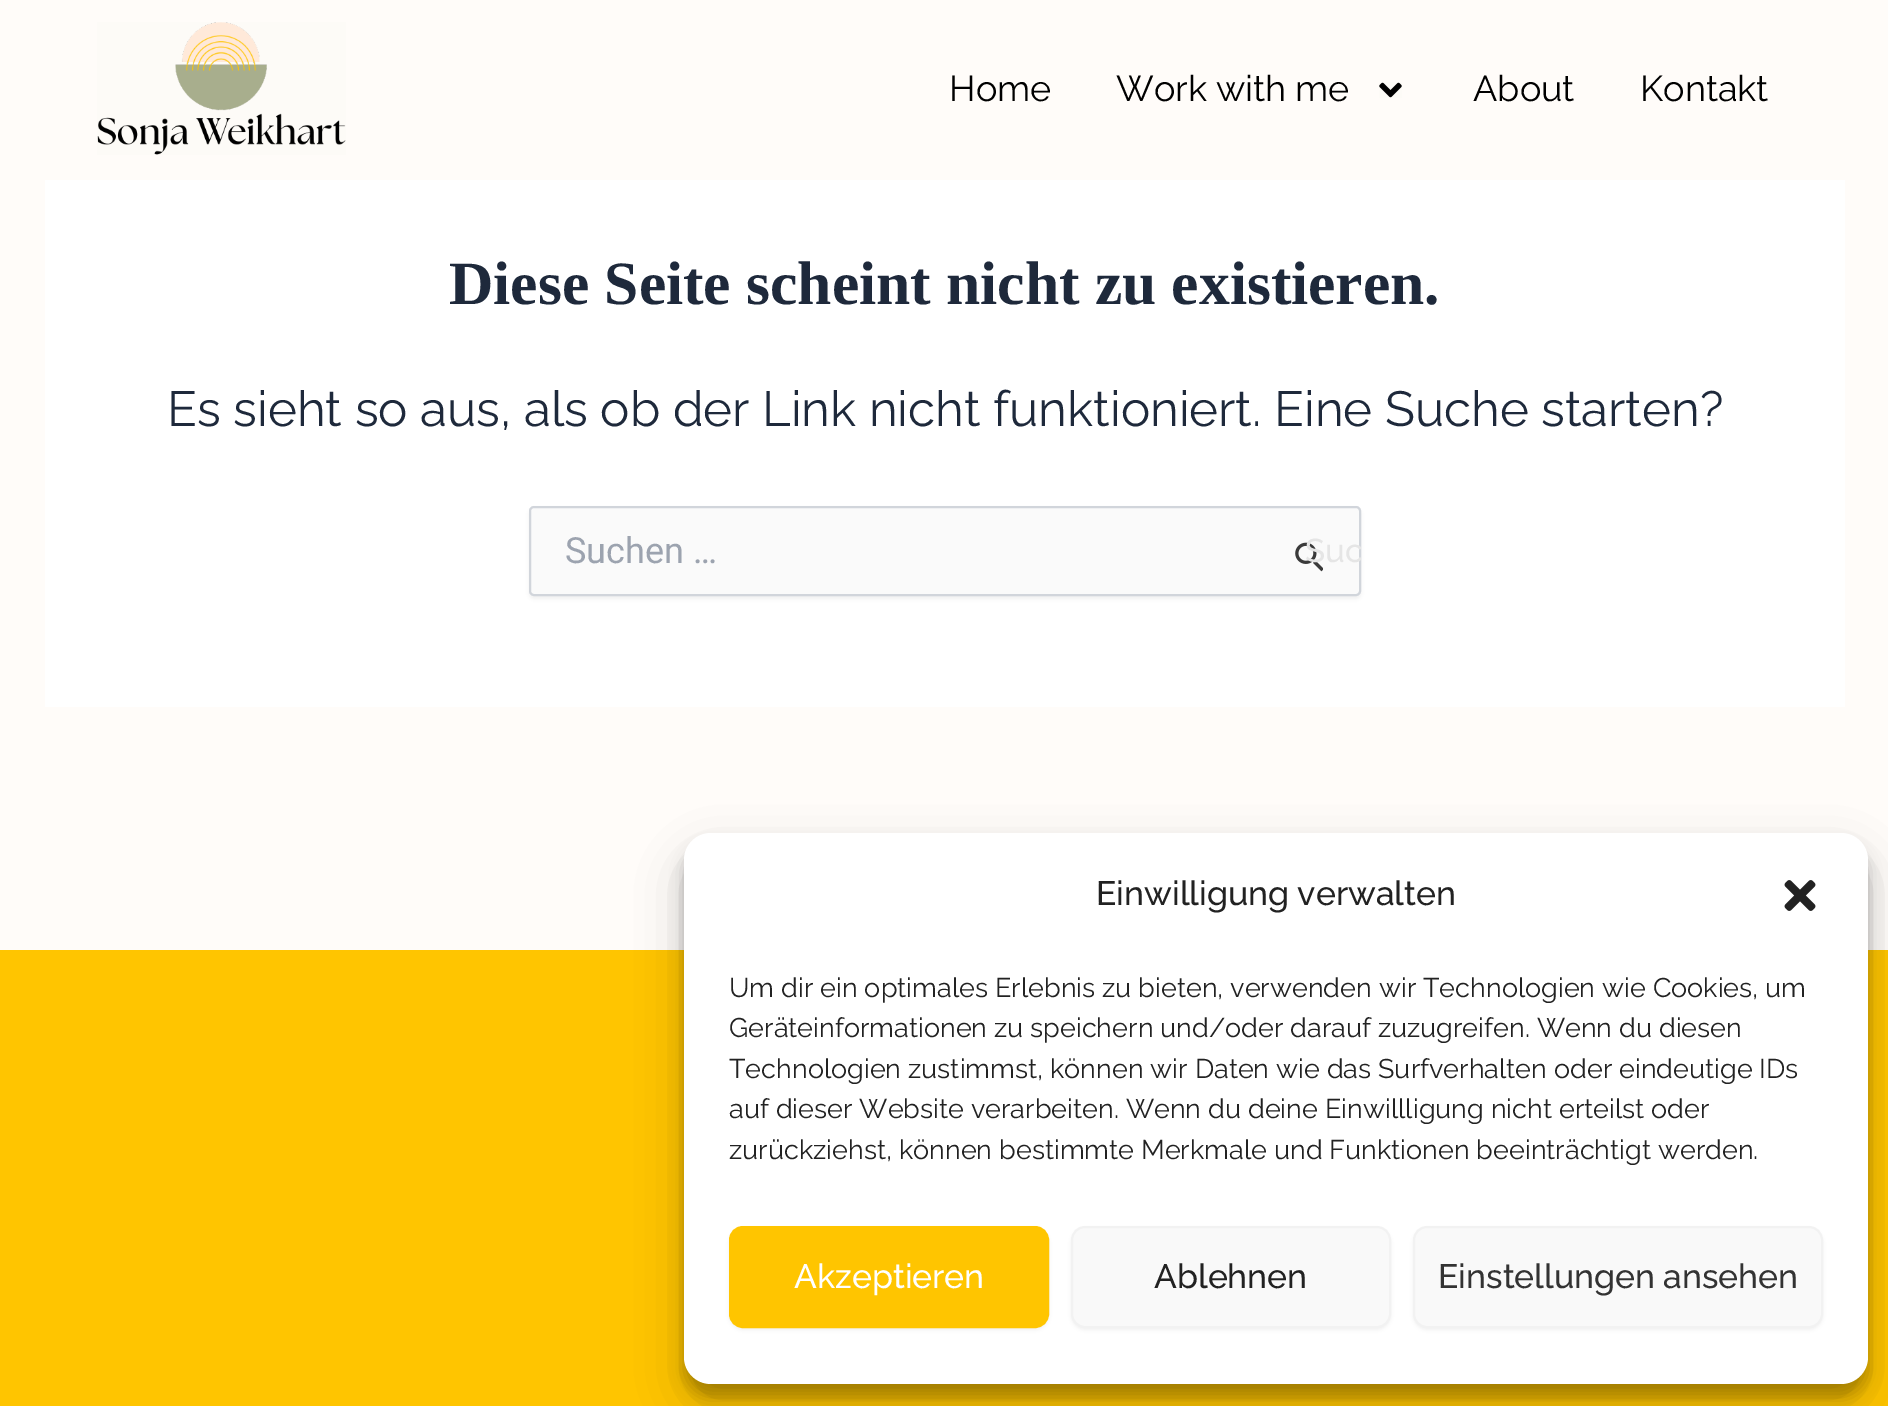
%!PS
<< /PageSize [1888 1406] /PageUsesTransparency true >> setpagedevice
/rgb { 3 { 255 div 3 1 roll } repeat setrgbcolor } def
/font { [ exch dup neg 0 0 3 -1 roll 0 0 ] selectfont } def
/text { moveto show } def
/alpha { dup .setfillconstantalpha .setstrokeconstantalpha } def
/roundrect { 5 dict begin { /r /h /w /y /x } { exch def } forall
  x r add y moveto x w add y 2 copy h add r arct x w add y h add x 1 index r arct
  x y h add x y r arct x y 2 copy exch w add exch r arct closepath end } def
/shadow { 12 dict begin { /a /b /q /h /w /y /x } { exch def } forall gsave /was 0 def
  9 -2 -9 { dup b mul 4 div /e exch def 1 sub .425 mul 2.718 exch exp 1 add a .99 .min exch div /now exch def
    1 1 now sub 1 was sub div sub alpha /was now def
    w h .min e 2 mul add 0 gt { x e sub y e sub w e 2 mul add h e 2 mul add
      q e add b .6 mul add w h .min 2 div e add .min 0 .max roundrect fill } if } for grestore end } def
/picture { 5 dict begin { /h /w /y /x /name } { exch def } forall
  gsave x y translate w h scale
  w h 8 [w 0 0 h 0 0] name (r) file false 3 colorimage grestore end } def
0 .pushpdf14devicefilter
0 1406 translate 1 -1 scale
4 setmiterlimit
255 252 249 rgb
0 0 1888 1406 rectfill
(img_01.rgb) 97 22 249 133 picture
(img_02.rgb) 1379 82 23 16 picture
255 255 255 rgb
45 180 1800 527 rectfill
0 0 0 rgb
529 509 832 90 5 2 0.05 shadow
250 250 250 rgb
530 507 830 88 4 roundrect gsave fill grestore
209 213 219 rgb
2 setlinewidth
stroke
(img_03.rgb) 1295 542 28 30 picture
255 197 0 rgb
0 950 1888 456 rectfill
0 0 0 rgb
684 846 1184 551 27 7 0.23 shadow
684 855 1184 551 27 22.5 0.19 shadow
255 255 255 rgb
684 833 1184 551 27 roundrect fill
(img_04.rgb) 1784 880 32 31 picture
0 0 0 rgb
729 1229 320 101 14 2 0.05 shadow
255 197 0 rgb
730 1227 318 100 13 roundrect gsave fill grestore
stroke
0 0 0 rgb
1071 1229 320 101 14 2 0.05 shadow
249 249 249 rgb
1072 1227 318 100 13 roundrect gsave fill grestore
242 242 242 rgb
stroke
0 0 0 rgb
1413 1229 410 101 14 2 0.05 shadow
249 249 249 rgb
1414 1227 408 100 13 roundrect gsave fill grestore
242 242 242 rgb
stroke
/Raleway-Regular 36 font
0 0 0 rgb
(Home) 949 101 text
(Work with me) 1116 101 text
(About) 1473 101 text
(Kontakt) 1640 101 text
/LiberationSerif-Bold 61.5 font
30 41 59 rgb
(Diese Seite scheint nicht zu existieren.) 449 304 text
/Raleway-Regular 49.25 font
(Es sieht so aus, als ob der Link nicht funktioniert. Eine Suche starten?) 167 426 text
/Roboto-Regular 36 font
156 163 175 rgb
(Suchen …) 565 563 text
gsave
1260 506 101 90 5 roundrect clip newpath
/Raleway-Medium 33 font
229 229 229 rgb
(Suc) 1305 562 text
grestore
/Raleway-Medium 33.75 font
34 34 34 rgb
(Einwilligung verwalten) 1096 905 text
/Raleway-Regular 27 font
(Um dir ein optimales Erlebnis zu bieten, verwenden wir Technologien wie Cookies, um) 729 997 text
(Geräteinformationen zu speichern und/oder darauf zuzugreifen. Wenn du diesen) 729 1037 text
(Technologien zustimmst, können wir Daten wie das Surfverhalten oder eindeutige IDs) 729 1078 text
(auf dieser Website verarbeiten. Wenn du deine Einwillligung nicht erteilst oder) 729 1118 text
(zurückziehst, können bestimmte Merkmale und Funktionen beeinträchtigt werden.) 729 1159 text
/Raleway-Medium 33.75 font
255 255 255 rgb
(Akzeptieren) 794 1288 text
34 34 34 rgb
(Ablehnen) 1154 1288 text
51 51 51 rgb
(Einstellungen ansehen) 1438 1288 text
.poppdf14devicefilter showpage
